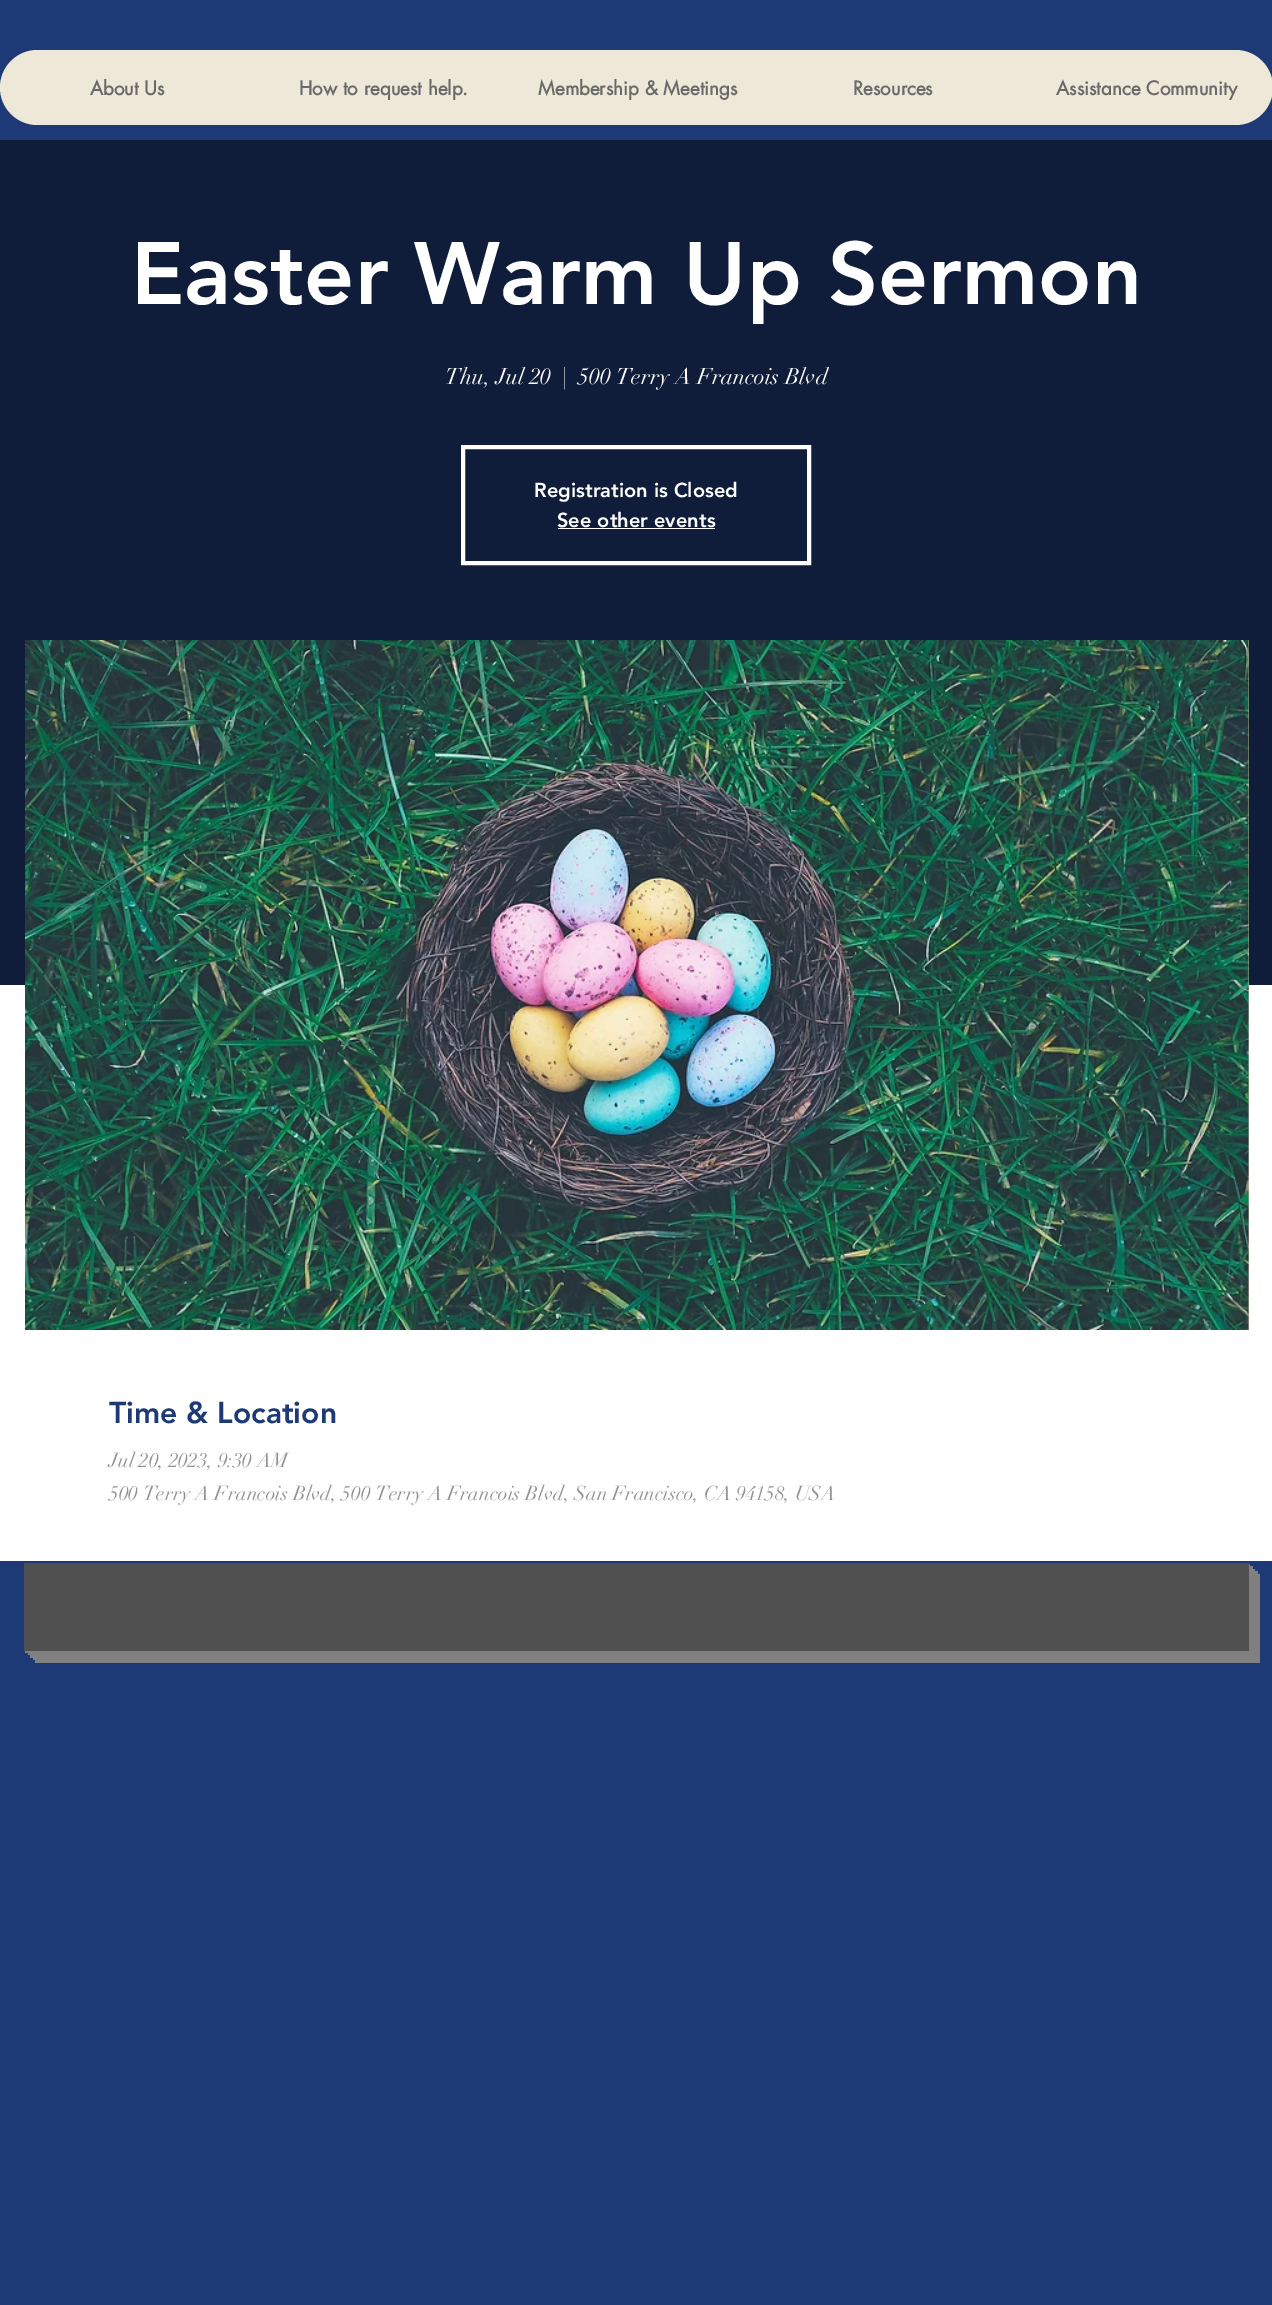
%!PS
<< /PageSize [1272 2305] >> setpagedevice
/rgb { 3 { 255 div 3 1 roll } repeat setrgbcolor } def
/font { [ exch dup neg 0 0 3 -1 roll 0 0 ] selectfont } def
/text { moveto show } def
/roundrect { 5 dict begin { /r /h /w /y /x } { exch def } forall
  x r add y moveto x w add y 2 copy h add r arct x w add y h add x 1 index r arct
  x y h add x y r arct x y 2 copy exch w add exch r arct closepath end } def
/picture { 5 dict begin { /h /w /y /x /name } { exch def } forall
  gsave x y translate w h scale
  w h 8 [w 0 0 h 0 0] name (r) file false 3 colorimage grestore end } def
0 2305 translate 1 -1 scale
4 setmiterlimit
30 58 118 rgb
0 0 1272 2305 rectfill
238 232 216 rgb
0 50 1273 75 37.5 roundrect fill
15 29 59 rgb
0 140 1272 845 rectfill
255 255 255 rgb
4 setlinewidth
463 447 346 116 rectstroke
558 528 157 1 rectfill
0 985 1272 576 rectfill
198 183 149 rgb
1248 640 1 690 rectfill
(img_01.rgb) 25 640 1224 690 picture
128 128 128 rgb
35 1651 moveto 0 12 rlineto 1225 0 rlineto 0 -89 rlineto -11 0 rlineto 0 77 rlineto closepath fill
33 1651 moveto 0 9 rlineto 1225 0 rlineto 0 -89 rlineto -9 0 rlineto 0 80 rlineto closepath fill
30 1651 moveto 0 7 rlineto 1225 0 rlineto 0 -89 rlineto -6 0 rlineto 0 82 rlineto closepath fill
28 1651 moveto 0 4 rlineto 1225 0 rlineto 0 -89 rlineto -4 0 rlineto 0 85 rlineto closepath fill
25 1651 moveto 0 2 rlineto 1225 0 rlineto 0 -89 rlineto -1 0 rlineto 0 87 rlineto closepath fill
80 80 80 rgb
24 1563 1225 88 rectfill
/futura-Bold 18.75 font
105 105 105 rgb
(About Us) 90 95 text
(How to request help.) 299 95 text
(Membership & Meetings) 538 95 text
(Resources) 853 95 text
(Assistance Community) 1056 95 text
/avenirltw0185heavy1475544-Black 87.5 font
255 255 255 rgb
(Easter Warm Up Sermon) 131 304 text
/didot-Regular 22.5 font
(Thu, Jul 20) 445 384 text
(|) 562 384 text
(500 Terry A Francois Blvd) 578 384 text
/avenirltw0185heavy1475544-Black 20 font
(Registration is Closed) 534 497 text
(See other events) 557 527 text
/avenirltw0185heavy1475544-Black 30 font
30 58 118 rgb
(Time & Location) 109 1423 text
/didot-Regular 20 font
146 146 146 rgb
(Jul 20, 2023, 9:30 AM) 109 1467 text
(500 Terry A Francois Blvd, 500 Terry A Francois Blvd, San Francisco, CA 94158, USA) 109 1500 text
showpage
